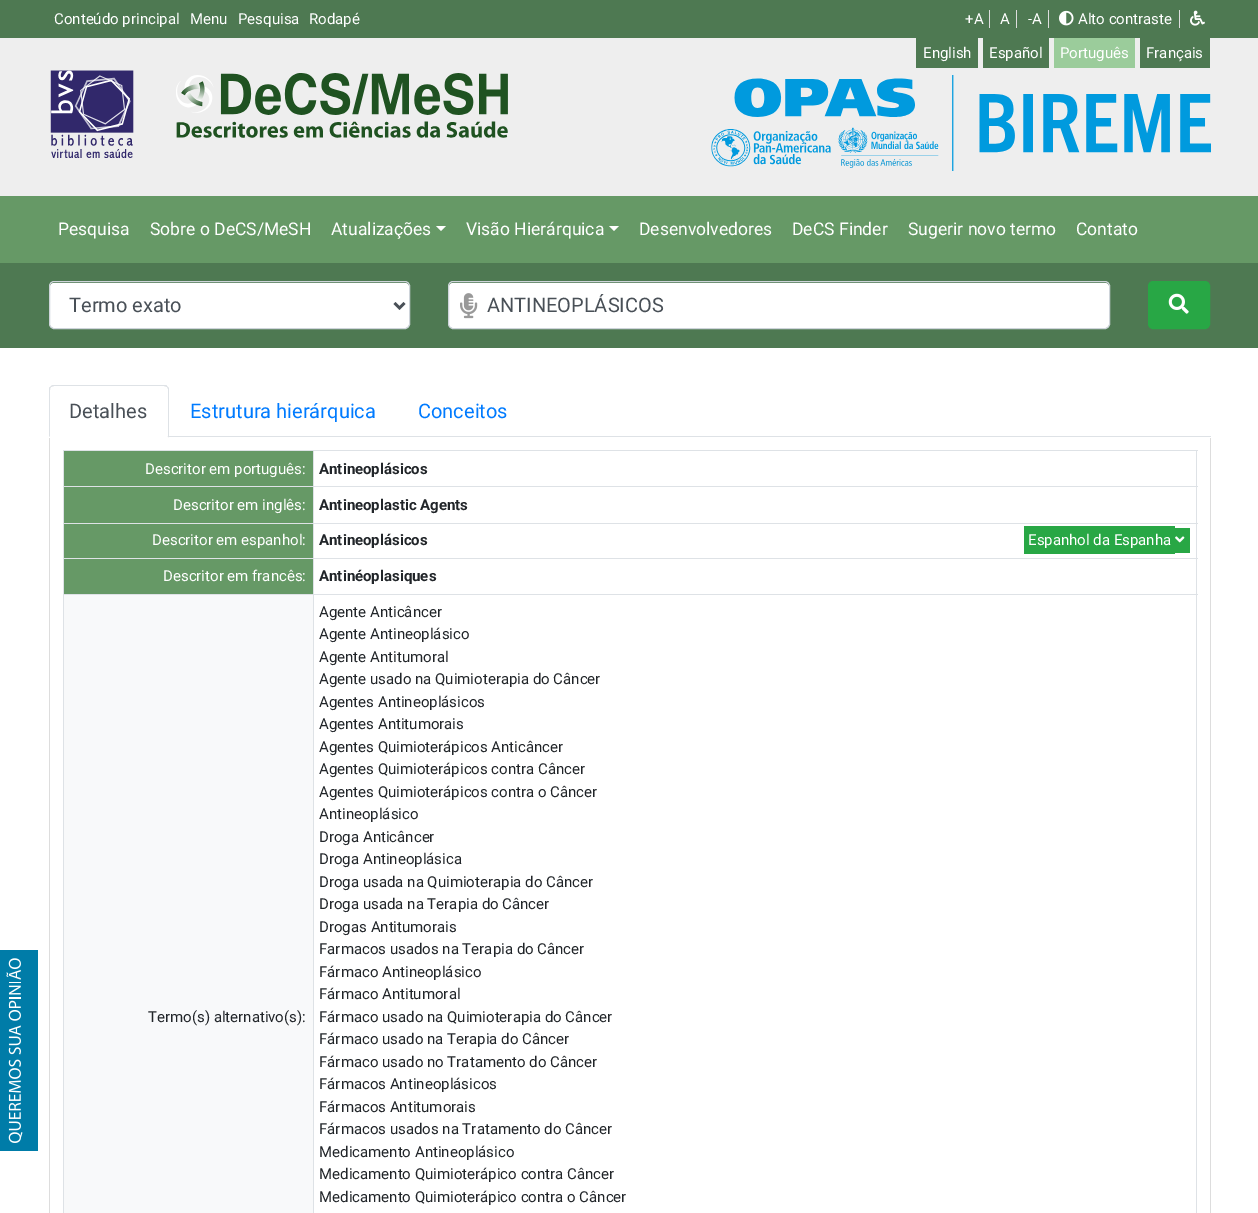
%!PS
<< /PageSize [1258 1213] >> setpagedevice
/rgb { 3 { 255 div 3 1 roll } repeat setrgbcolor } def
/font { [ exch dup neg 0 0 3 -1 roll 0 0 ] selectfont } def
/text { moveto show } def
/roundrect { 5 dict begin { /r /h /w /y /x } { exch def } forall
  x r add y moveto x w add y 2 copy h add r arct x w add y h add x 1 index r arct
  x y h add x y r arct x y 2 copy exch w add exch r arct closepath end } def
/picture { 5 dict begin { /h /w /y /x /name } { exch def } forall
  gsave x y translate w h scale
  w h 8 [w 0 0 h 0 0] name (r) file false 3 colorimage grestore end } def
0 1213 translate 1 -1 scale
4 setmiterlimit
255 255 255 rgb
0 0 1258 1213 rectfill
78 121 82 rgb
0 0 1258 38 rectfill
221 221 221 rgb
989 10 1 18 rectfill
1016 10 1 18 rectfill
1048 10 1 18 rectfill
1179 10 1 18 rectfill
(img_01.rgb) 1059 10 15 16 picture
(img_02.rgb) 1190 10 15 16 picture
238 238 238 rgb
0 38 1258 158 rectfill
78 121 82 rgb
916 38 62 30 rectfill
983 38 66 30 rectfill
155 204 155 rgb
1054 38 81 30 rectfill
78 121 82 rgb
1140 38 70 30 rectfill
(img_03.rgb) 50 70 84 88 picture
(img_04.rgb) 176 73 332 65 picture
(img_05.rgb) 711 75 500 96 picture
102 153 102 rgb
0 196 1258 67 rectfill
255 255 255 rgb
436 226 moveto 10 0 rlineto -5 5 rlineto closepath fill
609 226 moveto 10 0 rlineto -5 5 rlineto closepath fill
78 121 82 rgb
0 263 1258 85 rectfill
255 255 255 rgb
50 283 359 45 4 roundrect fill
206 212 218 rgb
49.5 281.5 360 47 4.5 roundrect stroke
73 80 87 rgb
2.5 setlinewidth
394.5 303 moveto 5 5 rlineto 5 -5 rlineto stroke
255 255 255 rgb
449 283 660 45 4 roundrect fill
206 212 218 rgb
1 setlinewidth
448.5 281.5 661 47 4.5 roundrect stroke
(img_06.rgb) 460 293 18 26 picture
40 167 69 rgb
1148.5 281.5 61 47 4.5 roundrect gsave fill grestore
stroke
(img_07.rgb) 1168 293 21 21 picture
(img_08.rgb) 0 950 38 201 picture
222 226 230 rgb
169 436 1042 1 rectfill
54 385 moveto -2 0 -3 1 -4 2 rcurveto 1 0 rlineto 3 -1 rlineto 110 0 rlineto 3 1 rlineto 0 -1 rlineto 0 -1 -2 -1 -3 -1 rcurveto closepath fill
167 386 moveto 2 2 rlineto 0 50 rlineto -2 -2 rlineto 1 0 rlineto 0 -47 rlineto -1 -2 rlineto closepath fill
255 255 255 rgb
169 438 moveto -120 0 rlineto 1 -2 rlineto 117 0 rlineto closepath fill
222 226 230 rgb
50 387 moveto -1 0 -1 2 -1 3 rcurveto 0 47 rlineto 1 -1 rlineto 0 -46 rlineto 0 -1 0 -2 1 -3 rcurveto closepath fill
221 221 221 rgb
1210 438 1 775 rectfill
49 438 1 775 rectfill
102 153 102 rgb
64 451 249 35 rectfill
222 226 230 rgb
313 450 885 1 rectfill
313 486 885 1 rectfill
313 523 885 1 rectfill
313 558 885 1 rectfill
313 594 885 1 rectfill
313 594 1 619 rectfill
63 594 251 1 rectfill
313 558 1 37 rectfill
63 558 251 1 rectfill
313 523 1 36 rectfill
63 523 251 1 rectfill
313 486 1 38 rectfill
63 486 251 1 rectfill
313 450 1 38 rectfill
63 450 251 1 rectfill
63 594 1 619 rectfill
63 558 1 37 rectfill
63 523 1 36 rectfill
63 486 1 38 rectfill
63 450 1 38 rectfill
1196 594 1 619 rectfill
1196 558 1 37 rectfill
1196 523 1 36 rectfill
1196 486 1 38 rectfill
1196 450 1 38 rectfill
102 153 102 rgb
64 487 249 36 rectfill
64 524 249 34 rectfill
40 167 69 rgb
1024 526 151 28 rectfill
1175 528 15 25 rectfill
(img_09.rgb) 1175 536 10 7 picture
102 153 102 rgb
64 559 249 35 rectfill
248 249 250 rgb
64 595 249 618 rectfill
/Roboto-Regular 15 font
255 255 255 rgb
(Conteúdo principal) 54 24 text
(Menu) 190 24 text
(Pesquisa) 238 24 text
(Rodapé) 309 24 text
(+A) 965 24 text
(A) 1000 24 text
(-A) 1028 24 text
(Alto contraste) 1078 24 text
(English) 923 58 text
(Español) 989 58 text
(Português) 1060 58 text
(Français) 1146 58 text
/Roboto-Regular 17.5 font
(Pesquisa) 58 235 text
(Sobre o DeCS/MeSH) 150 235 text
(Atualizações) 331 235 text
(Visão Hierárquica) 466 235 text
(Desenvolvedores) 639 235 text
(DeCS Finder) 792 235 text
(Sugerir novo termo) 908 235 text
(Contato) 1076 235 text
/Roboto-Regular 20 font
73 80 87 rgb
(Termo exato) 69 312 text
(ANTINEOPLÁSICOS) 487 312 text
(Detalhes) 69 418 text
0 123 255 rgb
(Estrutura hierárquica) 190 418 text
(Conceitos) 418 418 text
/Roboto-Regular 15 font
255 255 255 rgb
(Descritor em português:) 145 474 text
/Roboto-Bold 15 font
33 37 41 rgb
(Antineoplásicos) 319 474 text
/Roboto-Regular 15 font
255 255 255 rgb
(Descritor em inglês:) 173 510 text
/Roboto-Bold 15 font
33 37 41 rgb
(Antineoplastic Agents) 319 510 text
/Roboto-Regular 15 font
255 255 255 rgb
(Descritor em espanhol:) 152 545 text
/Roboto-Bold 15 font
33 37 41 rgb
(Antineoplásicos) 319 545 text
/Roboto-Regular 15 font
255 255 255 rgb
(Espanhol da Espanha) 1028 545 text
(Descritor em francês:) 163 581 text
/Roboto-Bold 15 font
33 37 41 rgb
(Antinéoplasiques) 319 581 text
/Roboto-Regular 15 font
(Termo\(s\) alternativo\(s\):) 148 1022 text
(Agente Anticâncer) 319 617 text
(Agente Antineoplásico) 319 639 text
(Agente Antitumoral) 319 662 text
(Agente usado na Quimioterapia do Câncer) 319 684 text
(Agentes Antineoplásicos) 319 707 text
(Agentes Antitumorais) 319 729 text
(Agentes Quimioterápicos Anticâncer) 319 752 text
(Agentes Quimioterápicos contra Câncer) 319 774 text
(Agentes Quimioterápicos contra o Câncer) 319 797 text
(Antineoplásico) 319 819 text
(Droga Anticâncer) 319 842 text
(Droga Antineoplásica) 319 864 text
(Droga usada na Quimioterapia do Câncer) 319 887 text
(Droga usada na Terapia do Câncer) 319 909 text
(Drogas Antitumorais) 319 932 text
(Farmacos usados na Terapia do Câncer) 319 954 text
(Fármaco Antineoplásico) 319 977 text
(Fármaco Antitumoral) 319 999 text
(Fármaco usado na Quimioterapia do Câncer) 319 1022 text
(Fármaco usado na Terapia do Câncer) 319 1044 text
(Fármaco usado no Tratamento do Câncer) 319 1067 text
(Fármacos Antineoplásicos) 319 1089 text
(Fármacos Antitumorais) 319 1112 text
(Fármacos usados na Tratamento do Câncer) 319 1134 text
(Medicamento Antineoplásico) 319 1157 text
(Medicamento Quimioterápico contra Câncer) 319 1179 text
(Medicamento Quimioterápico contra o Câncer) 319 1202 text
showpage
